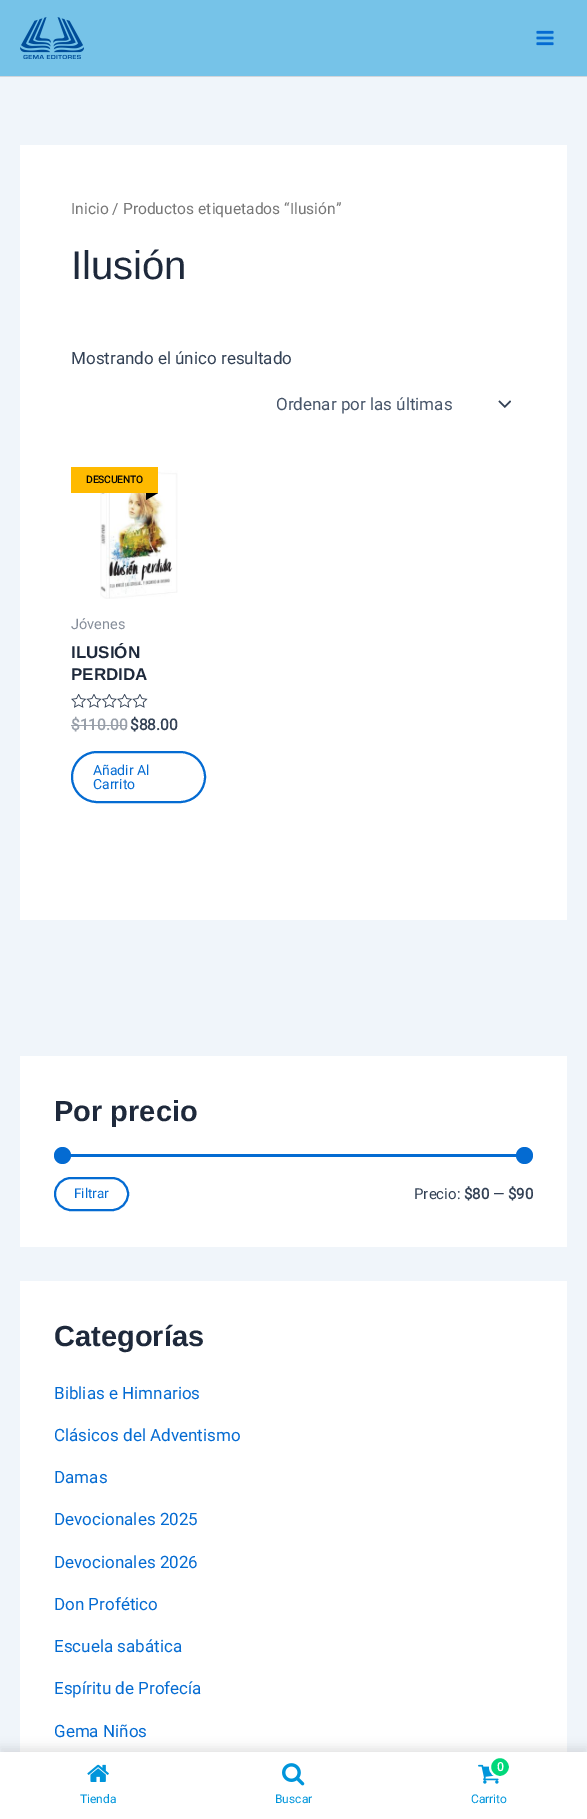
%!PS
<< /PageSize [587 1819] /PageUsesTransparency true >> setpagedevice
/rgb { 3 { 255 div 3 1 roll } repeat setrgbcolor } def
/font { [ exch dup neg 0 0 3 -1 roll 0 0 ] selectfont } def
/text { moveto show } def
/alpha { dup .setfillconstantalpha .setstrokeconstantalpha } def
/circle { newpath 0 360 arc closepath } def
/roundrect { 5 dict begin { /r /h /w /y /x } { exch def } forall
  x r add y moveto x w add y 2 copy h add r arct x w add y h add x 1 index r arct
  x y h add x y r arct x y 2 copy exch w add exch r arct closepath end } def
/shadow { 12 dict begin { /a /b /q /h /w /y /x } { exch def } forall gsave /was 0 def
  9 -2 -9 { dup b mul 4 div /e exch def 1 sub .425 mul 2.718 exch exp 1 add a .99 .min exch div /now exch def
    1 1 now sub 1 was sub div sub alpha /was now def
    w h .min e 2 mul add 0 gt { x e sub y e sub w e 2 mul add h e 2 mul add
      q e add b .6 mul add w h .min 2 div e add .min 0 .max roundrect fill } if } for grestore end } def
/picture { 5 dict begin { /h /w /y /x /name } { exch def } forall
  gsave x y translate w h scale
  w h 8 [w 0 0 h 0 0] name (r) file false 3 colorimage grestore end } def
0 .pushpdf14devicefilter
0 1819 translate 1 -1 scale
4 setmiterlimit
240 245 250 rgb
0 0 587 1819 rectfill
118 195 232 rgb
0 0 587 76 rectfill
209 213 219 rgb
0 76 587 1 rectfill
(img_01.rgb) 20 17 64 42 picture
(img_02.rgb) 536 30 18 16 picture
255 255 255 rgb
20 145 547 775 rectfill
(img_03.rgb) 498 400 13 8 picture
(img_04.rgb) 100 470 78 129 picture
255 186 0 rgb
71 467 87 26 rectfill
0 0 0 rgb
146 493 moveto 0 7 rlineto 12 -7 rlineto closepath fill
(img_05.rgb) 71 694 77 14 picture
153 160 170 rgb
71 725 56 1 rectfill
4 107 210 rgb
2 setlinewidth
72 752 133 50 25 roundrect stroke
255 255 255 rgb
20 1056 547 191 rectfill
4 107 210 rgb
63 1154 462 3 rectfill
62.5 1155.5 8.5 circle fill
524.5 1155.5 8.5 circle fill
55 1178 73 32 16 roundrect stroke
255 255 255 rgb
20 1281 547 471 rectfill
0 0 0 rgb
0 1747 587 67 0 5 0.1 shadow
255 255 255 rgb
0 1752 587 67 rectfill
(img_06.rgb) 87 1764 22 18 picture
(img_07.rgb) 282 1763 23 23 picture
(img_08.rgb) 478 1764 21 20 picture
0 216 122 rgb
500 1767 10 circle gsave fill grestore
255 255 255 rgb
stroke
/Roboto-Regular 15.6 font
119 119 119 rgb
(Inicio / Productos etiquetados “Ilusión”) 71 214 text
/LiberationSans-Regular 40 font
30 41 59 rgb
(Ilusión) 71 279 text
/Roboto-Regular 17 font
51 65 85 rgb
(Mostrando el único resultado) 71 364 text
71 85 105 rgb
(Ordenar por las últimas) 276 410 text
/Roboto-Bold 10 font
5 5 5 rgb
(DESCUENTO) 86 483 text
/Roboto-Regular 14.5 font
133 141 153 rgb
(Jóvenes) 71 629 text
/LiberationSans-Bold 17 font
30 41 59 rgb
(ILUSIÓN) 71 658 text
(PERDIDA) 71 680 text
/Roboto-Bold 15.5 font
153 160 170 rgb
($110.00) 71 730 text
51 65 85 rgb
($88.00) 130 730 text
/Roboto-Regular 14 font
4 107 210 rgb
(Añadir Al) 93 775 text
(Carrito) 93 789 text
/LiberationSans-Bold 29 font
30 41 59 rgb
(Por precio) 54 1121 text
/Roboto-Regular 13.5 font
4 107 210 rgb
(Filtrar) 74 1198 text
/Roboto-Regular 15 font
51 65 85 rgb
(Precio:) 414 1199 text
/Roboto-Bold 15 font
($80) 464 1199 text
/Roboto-Regular 15 font
(—) 493 1199 text
/Roboto-Bold 15 font
($90) 508 1199 text
/LiberationSans-Bold 29 font
30 41 59 rgb
(Categorías) 54 1346 text
/Roboto-Regular 17 font
4 107 210 rgb
(Biblias e Himnarios) 54 1399 text
(Clásicos del Adventismo) 54 1441 text
(Damas) 54 1483 text
(Devocionales 2025) 54 1525 text
(Devocionales 2026) 54 1568 text
(Don Profético) 54 1610 text
(Escuela sabática) 54 1652 text
(Espíritu de Profecía) 54 1694 text
(Gema Niños) 54 1737 text
/Roboto-Regular 12 font
0 149 219 rgb
(Tienda) 80 1803 text
(Buscar) 275 1803 text
/Roboto-Bold 12 font
255 255 255 rgb
(0) 497 1771 text
/Roboto-Regular 12 font
0 149 219 rgb
(Carrito) 471 1803 text
.poppdf14devicefilter showpage
